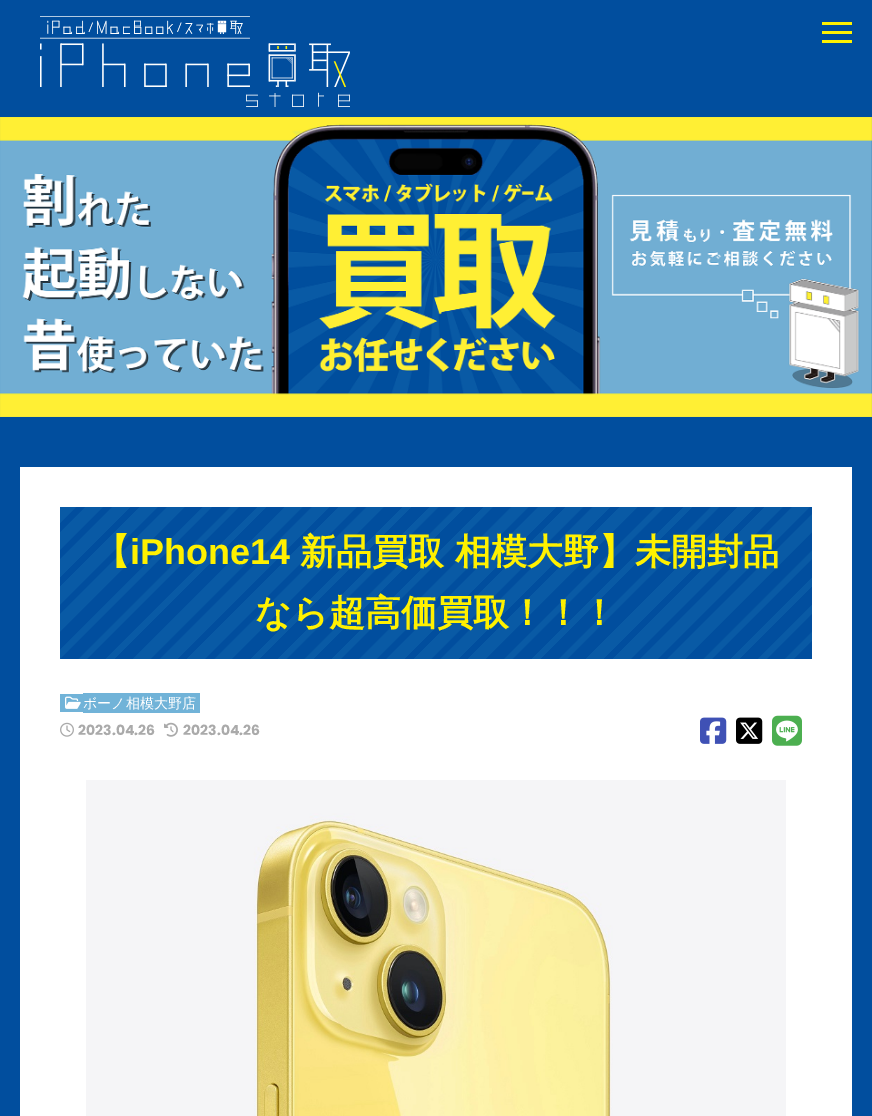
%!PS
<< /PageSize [872 1116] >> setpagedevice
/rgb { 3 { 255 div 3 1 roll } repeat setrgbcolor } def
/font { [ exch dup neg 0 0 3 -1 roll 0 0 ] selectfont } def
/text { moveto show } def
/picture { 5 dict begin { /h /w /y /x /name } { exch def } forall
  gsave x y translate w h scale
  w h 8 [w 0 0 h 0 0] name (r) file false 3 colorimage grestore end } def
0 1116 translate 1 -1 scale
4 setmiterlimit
1 78 158 rgb
0 0 872 1116 rectfill
(img_01.rgb) 40 16 310 91 picture
255 241 0 rgb
822 22 30 3 rectfill
822 31 30 3 rectfill
822 40 30 3 rectfill
(img_02.rgb) 0 117 872 300 picture
255 255 255 rgb
20 467 832 649 rectfill
gsave 60 507 moveto 752 0 rlineto 0 152 rlineto -752 0 rlineto closepath clip newpath
<< /ShadingType 2 /ColorSpace /DeviceRGB /Coords [662 809 209 356] /Extend [true true] /Function << /FunctionType 3 /Domain [0 1] /Functions [<< /FunctionType 2 /Domain [0 1] /C0 [0.004 0.306 0.62] /C1 [0.004 0.306 0.62] /N 1 >> << /FunctionType 2 /Domain [0 1] /C0 [0.035 0.353 0.647] /C1 [0.035 0.353 0.647] /N 1 >> << /FunctionType 2 /Domain [0 1] /C0 [0.004 0.306 0.62] /C1 [0.004 0.306 0.62] /N 1 >> << /FunctionType 2 /Domain [0 1] /C0 [0.035 0.353 0.647] /C1 [0.035 0.353 0.647] /N 1 >> << /FunctionType 2 /Domain [0 1] /C0 [0.004 0.306 0.62] /C1 [0.004 0.306 0.62] /N 1 >> << /FunctionType 2 /Domain [0 1] /C0 [0.035 0.353 0.647] /C1 [0.035 0.353 0.647] /N 1 >> << /FunctionType 2 /Domain [0 1] /C0 [0.004 0.306 0.62] /C1 [0.004 0.306 0.62] /N 1 >> << /FunctionType 2 /Domain [0 1] /C0 [0.035 0.353 0.647] /C1 [0.035 0.353 0.647] /N 1 >> << /FunctionType 2 /Domain [0 1] /C0 [0.004 0.306 0.62] /C1 [0.004 0.306 0.62] /N 1 >> << /FunctionType 2 /Domain [0 1] /C0 [0.035 0.353 0.647] /C1 [0.035 0.353 0.647] /N 1 >> << /FunctionType 2 /Domain [0 1] /C0 [0.004 0.306 0.62] /C1 [0.004 0.306 0.62] /N 1 >> << /FunctionType 2 /Domain [0 1] /C0 [0.035 0.353 0.647] /C1 [0.035 0.353 0.647] /N 1 >> << /FunctionType 2 /Domain [0 1] /C0 [0.004 0.306 0.62] /C1 [0.004 0.306 0.62] /N 1 >> << /FunctionType 2 /Domain [0 1] /C0 [0.035 0.353 0.647] /C1 [0.035 0.353 0.647] /N 1 >> << /FunctionType 2 /Domain [0 1] /C0 [0.004 0.306 0.62] /C1 [0.004 0.306 0.62] /N 1 >> << /FunctionType 2 /Domain [0 1] /C0 [0.035 0.353 0.647] /C1 [0.035 0.353 0.647] /N 1 >> << /FunctionType 2 /Domain [0 1] /C0 [0.004 0.306 0.62] /C1 [0.004 0.306 0.62] /N 1 >> << /FunctionType 2 /Domain [0 1] /C0 [0.035 0.353 0.647] /C1 [0.035 0.353 0.647] /N 1 >> << /FunctionType 2 /Domain [0 1] /C0 [0.004 0.306 0.62] /C1 [0.004 0.306 0.62] /N 1 >> << /FunctionType 2 /Domain [0 1] /C0 [0.035 0.353 0.647] /C1 [0.035 0.353 0.647] /N 1 >> << /FunctionType 2 /Domain [0 1] /C0 [0.004 0.306 0.62] /C1 [0.004 0.306 0.62] /N 1 >> << /FunctionType 2 /Domain [0 1] /C0 [0.035 0.353 0.647] /C1 [0.035 0.353 0.647] /N 1 >> << /FunctionType 2 /Domain [0 1] /C0 [0.004 0.306 0.62] /C1 [0.004 0.306 0.62] /N 1 >> << /FunctionType 2 /Domain [0 1] /C0 [0.035 0.353 0.647] /C1 [0.035 0.353 0.647] /N 1 >> << /FunctionType 2 /Domain [0 1] /C0 [0.004 0.306 0.62] /C1 [0.004 0.306 0.62] /N 1 >> << /FunctionType 2 /Domain [0 1] /C0 [0.035 0.353 0.647] /C1 [0.035 0.353 0.647] /N 1 >> << /FunctionType 2 /Domain [0 1] /C0 [0.004 0.306 0.62] /C1 [0.004 0.306 0.62] /N 1 >> << /FunctionType 2 /Domain [0 1] /C0 [0.035 0.353 0.647] /C1 [0.035 0.353 0.647] /N 1 >> << /FunctionType 2 /Domain [0 1] /C0 [0.004 0.306 0.62] /C1 [0.004 0.306 0.62] /N 1 >> << /FunctionType 2 /Domain [0 1] /C0 [0.035 0.353 0.647] /C1 [0.035 0.353 0.647] /N 1 >> << /FunctionType 2 /Domain [0 1] /C0 [0.004 0.306 0.62] /C1 [0.004 0.306 0.62] /N 1 >> << /FunctionType 2 /Domain [0 1] /C0 [0.035 0.353 0.647] /C1 [0.035 0.353 0.647] /N 1 >> << /FunctionType 2 /Domain [0 1] /C0 [0.004 0.306 0.62] /C1 [0.004 0.306 0.62] /N 1 >> << /FunctionType 2 /Domain [0 1] /C0 [0.035 0.353 0.647] /C1 [0.035 0.353 0.647] /N 1 >> << /FunctionType 2 /Domain [0 1] /C0 [0.004 0.306 0.62] /C1 [0.004 0.306 0.62] /N 1 >> << /FunctionType 2 /Domain [0 1] /C0 [0.035 0.353 0.647] /C1 [0.035 0.353 0.647] /N 1 >> << /FunctionType 2 /Domain [0 1] /C0 [0.004 0.306 0.62] /C1 [0.004 0.306 0.62] /N 1 >> << /FunctionType 2 /Domain [0 1] /C0 [0.035 0.353 0.647] /C1 [0.035 0.353 0.647] /N 1 >> << /FunctionType 2 /Domain [0 1] /C0 [0.004 0.306 0.62] /C1 [0.004 0.306 0.62] /N 1 >> << /FunctionType 2 /Domain [0 1] /C0 [0.035 0.353 0.647] /C1 [0.035 0.353 0.647] /N 1 >> << /FunctionType 2 /Domain [0 1] /C0 [0.004 0.306 0.62] /C1 [0.004 0.306 0.62] /N 1 >> << /FunctionType 2 /Domain [0 1] /C0 [0.035 0.353 0.647] /C1 [0.035 0.353 0.647] /N 1 >> << /FunctionType 2 /Domain [0 1] /C0 [0.004 0.306 0.62] /C1 [0.004 0.306 0.62] /N 1 >> << /FunctionType 2 /Domain [0 1] /C0 [0.035 0.353 0.647] /C1 [0.035 0.353 0.647] /N 1 >> << /FunctionType 2 /Domain [0 1] /C0 [0.004 0.306 0.62] /C1 [0.004 0.306 0.62] /N 1 >> << /FunctionType 2 /Domain [0 1] /C0 [0.035 0.353 0.647] /C1 [0.035 0.353 0.647] /N 1 >> << /FunctionType 2 /Domain [0 1] /C0 [0.004 0.306 0.62] /C1 [0.004 0.306 0.62] /N 1 >> << /FunctionType 2 /Domain [0 1] /C0 [0.035 0.353 0.647] /C1 [0.035 0.353 0.647] /N 1 >> << /FunctionType 2 /Domain [0 1] /C0 [0.004 0.306 0.62] /C1 [0.004 0.306 0.62] /N 1 >> << /FunctionType 2 /Domain [0 1] /C0 [0.035 0.353 0.647] /C1 [0.035 0.353 0.647] /N 1 >> << /FunctionType 2 /Domain [0 1] /C0 [0.004 0.306 0.62] /C1 [0.004 0.306 0.62] /N 1 >> << /FunctionType 2 /Domain [0 1] /C0 [0.035 0.353 0.647] /C1 [0.035 0.353 0.647] /N 1 >> << /FunctionType 2 /Domain [0 1] /C0 [0.004 0.306 0.62] /C1 [0.004 0.306 0.62] /N 1 >> << /FunctionType 2 /Domain [0 1] /C0 [0.035 0.353 0.647] /C1 [0.035 0.353 0.647] /N 1 >> << /FunctionType 2 /Domain [0 1] /C0 [0.004 0.306 0.62] /C1 [0.004 0.306 0.62] /N 1 >> << /FunctionType 2 /Domain [0 1] /C0 [0.035 0.353 0.647] /C1 [0.035 0.353 0.647] /N 1 >> << /FunctionType 2 /Domain [0 1] /C0 [0.004 0.306 0.62] /C1 [0.004 0.306 0.62] /N 1 >> << /FunctionType 2 /Domain [0 1] /C0 [0.035 0.353 0.647] /C1 [0.035 0.353 0.647] /N 1 >> << /FunctionType 2 /Domain [0 1] /C0 [0.004 0.306 0.62] /C1 [0.004 0.306 0.62] /N 1 >> << /FunctionType 2 /Domain [0 1] /C0 [0.035 0.353 0.647] /C1 [0.035 0.353 0.647] /N 1 >> << /FunctionType 2 /Domain [0 1] /C0 [0.004 0.306 0.62] /C1 [0.004 0.306 0.62] /N 1 >> << /FunctionType 2 /Domain [0 1] /C0 [0.035 0.353 0.647] /C1 [0.035 0.353 0.647] /N 1 >> << /FunctionType 2 /Domain [0 1] /C0 [0.004 0.306 0.62] /C1 [0.004 0.306 0.62] /N 1 >> << /FunctionType 2 /Domain [0 1] /C0 [0.035 0.353 0.647] /C1 [0.035 0.353 0.647] /N 1 >>] /Bounds [0.02 0.03 0.05 0.06 0.08 0.09 0.11 0.12 0.14 0.16 0.17 0.19 0.2 0.22 0.23 0.25 0.27 0.28 0.3 0.31 0.33 0.34 0.36 0.38 0.39 0.41 0.42 0.44 0.45 0.47 0.48 0.5 0.52 0.53 0.55 0.56 0.58 0.59 0.61 0.62 0.64 0.66 0.67 0.69 0.7 0.72 0.73 0.75 0.77 0.78 0.8 0.81 0.83 0.84 0.86 0.88 0.89 0.91 0.92 0.94 0.95 0.97 0.98] /Encode [0 1 0 1 0 1 0 1 0 1 0 1 0 1 0 1 0 1 0 1 0 1 0 1 0 1 0 1 0 1 0 1 0 1 0 1 0 1 0 1 0 1 0 1 0 1 0 1 0 1 0 1 0 1 0 1 0 1 0 1 0 1 0 1 0 1 0 1 0 1 0 1 0 1 0 1 0 1 0 1 0 1 0 1 0 1 0 1 0 1 0 1 0 1 0 1 0 1 0 1 0 1 0 1 0 1 0 1 0 1 0 1 0 1 0 1 0 1 0 1 0 1 0 1 0 1 0 1] >> >> shfill grestore
113 179 216 rgb
60 694 23 18 rectfill
(img_03.rgb) 65 696 16 13 picture
83 693 117 20 rectfill
(img_04.rgb) 60 722 14 15 picture
(img_05.rgb) 164 722 14 15 picture
(img_06.rgb) 700 717 27 27 picture
(img_07.rgb) 736 717 27 27 picture
(img_08.rgb) 772 715 30 31 picture
(img_09.rgb) 86 780 700 336 picture
/WenQuanYiZenHei-Bold 36 font
255 241 0 rgb
(【) 94 564 text
/LiberationSans-Bold 36 font
(iPhone14) 130 564 text
/WenQuanYiZenHei-Bold 36 font
(新品買取 相模大野】未開封品) 300 564 text
(なら超高価買取！！！) 255 625 text
/WenQuanYiZenHei-Medium 14 font
255 255 255 rgb
(ボーノ相模大野店) 83 708 text
/Poppins-Bold 14 font
170 170 170 rgb
(2023.04.26) 78 735 text
(2023.04.26) 183 735 text
showpage
